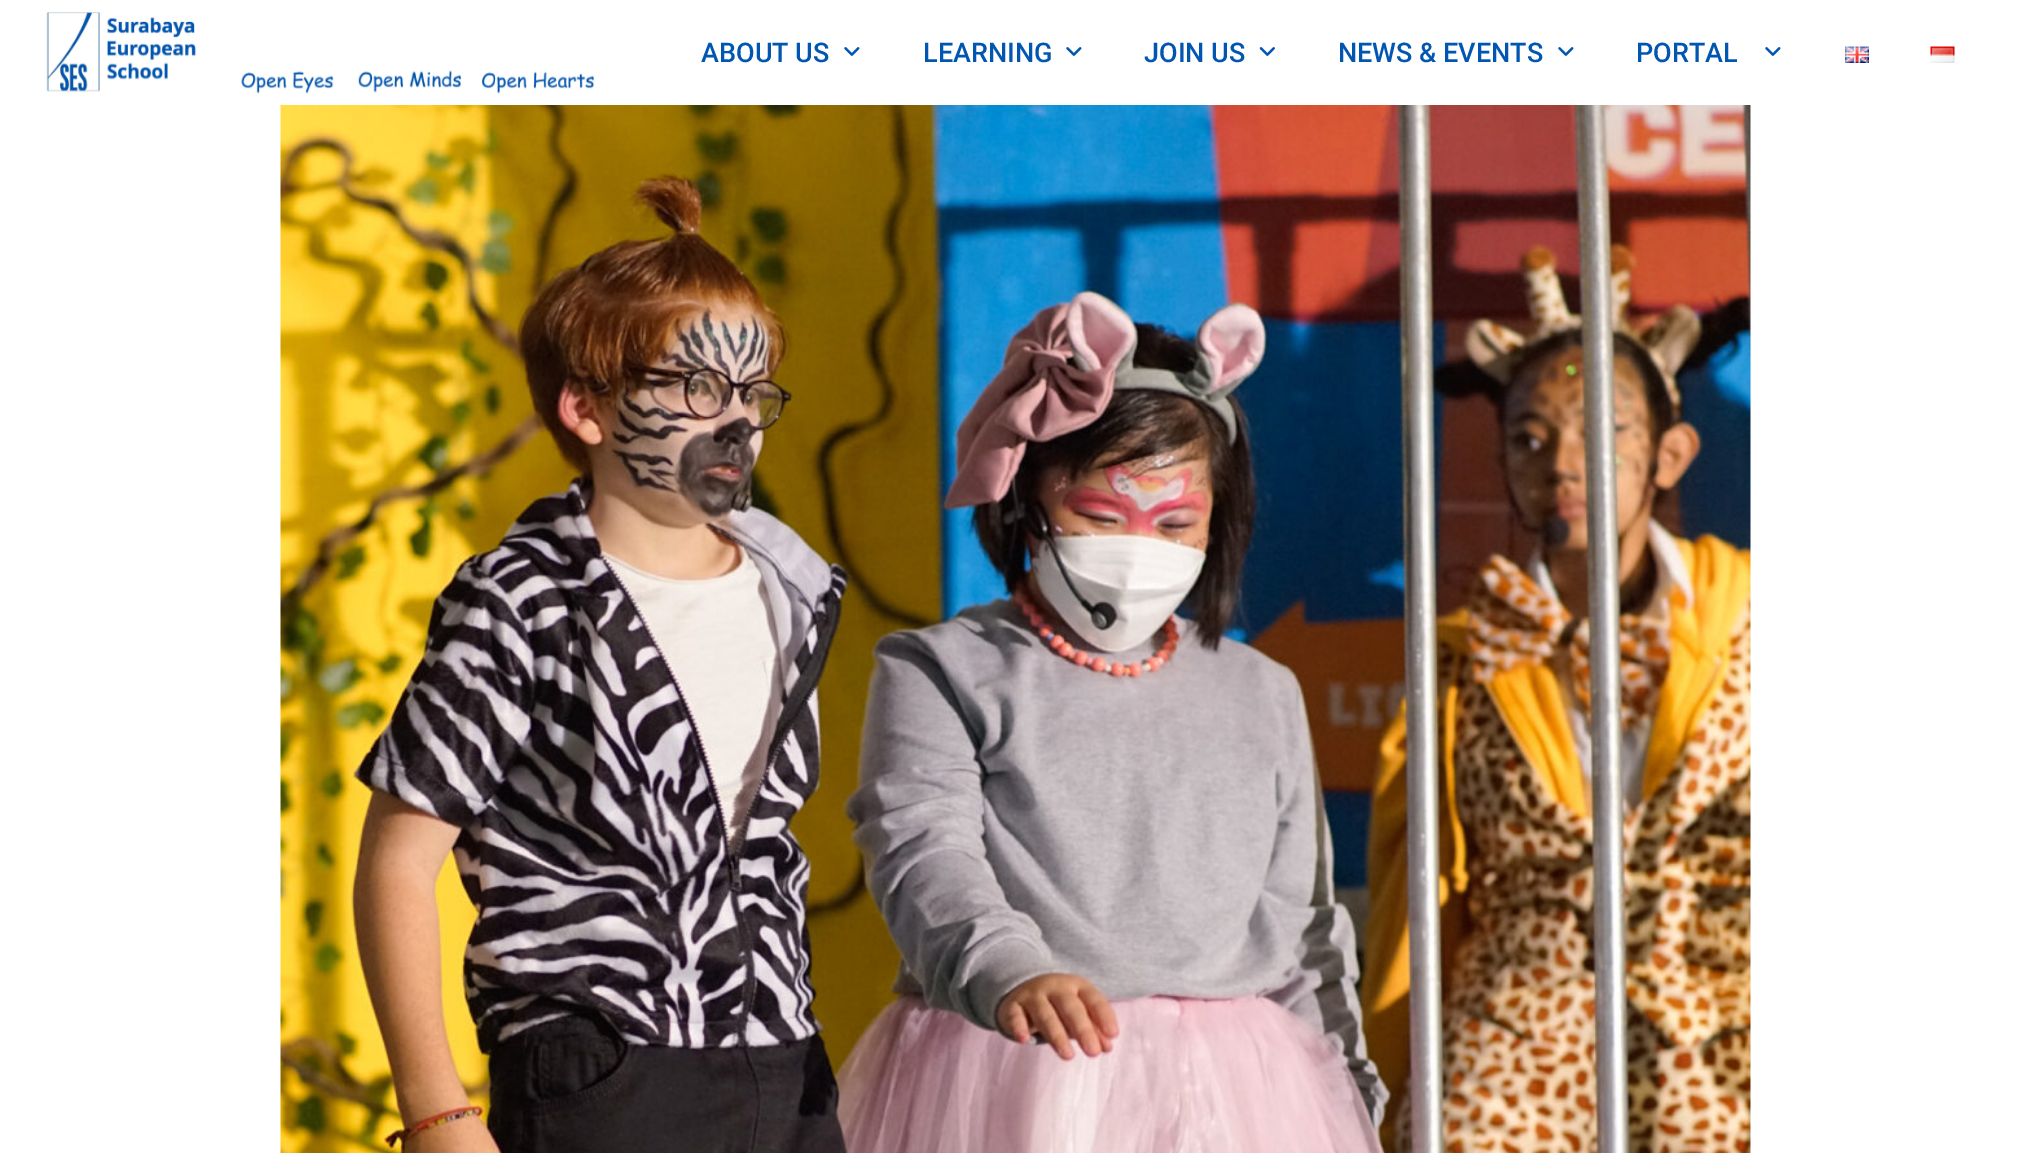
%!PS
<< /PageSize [2030 1153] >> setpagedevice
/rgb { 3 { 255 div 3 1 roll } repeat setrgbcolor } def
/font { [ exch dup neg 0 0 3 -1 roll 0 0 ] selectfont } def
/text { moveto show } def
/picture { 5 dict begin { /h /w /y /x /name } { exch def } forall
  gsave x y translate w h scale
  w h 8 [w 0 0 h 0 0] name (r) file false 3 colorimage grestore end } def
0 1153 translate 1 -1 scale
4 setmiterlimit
255 255 255 rgb
0 0 2030 1153 rectfill
(img_01.rgb) 46 12 549 82 picture
(img_02.rgb) 844 47 16 9 picture
(img_02.rgb) 1066 47 16 9 picture
(img_03.rgb) 1259 47 16 9 picture
(img_02.rgb) 1558 47 16 9 picture
(img_02.rgb) 1765 47 16 9 picture
(img_04.rgb) 1845 46 24 17 picture
(img_05.rgb) 1930 46 25 17 picture
(img_06.rgb) 280 105 1471 1048 picture
/Roboto-Medium 27 font
0 86 176 rgb
(ABOUT US) 701 62 text
(LEARNING) 923 62 text
(JOIN US) 1144 62 text
(NEWS & EVENTS) 1338 62 text
(PORTAL) 1636 62 text
showpage
